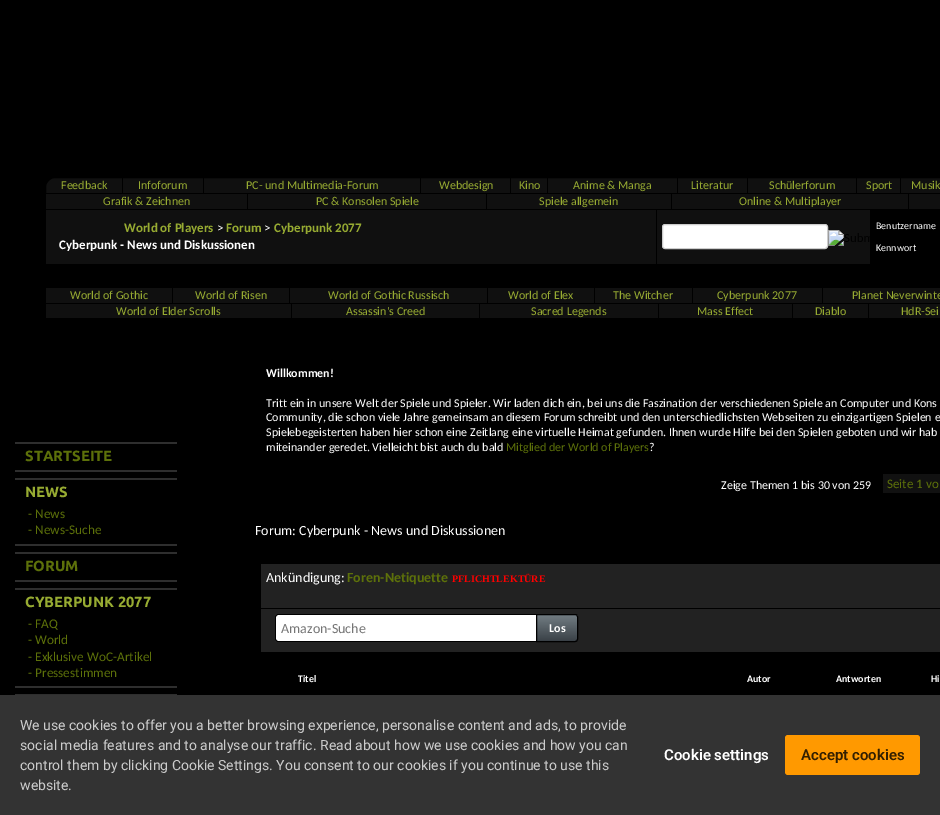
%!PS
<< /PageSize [940 815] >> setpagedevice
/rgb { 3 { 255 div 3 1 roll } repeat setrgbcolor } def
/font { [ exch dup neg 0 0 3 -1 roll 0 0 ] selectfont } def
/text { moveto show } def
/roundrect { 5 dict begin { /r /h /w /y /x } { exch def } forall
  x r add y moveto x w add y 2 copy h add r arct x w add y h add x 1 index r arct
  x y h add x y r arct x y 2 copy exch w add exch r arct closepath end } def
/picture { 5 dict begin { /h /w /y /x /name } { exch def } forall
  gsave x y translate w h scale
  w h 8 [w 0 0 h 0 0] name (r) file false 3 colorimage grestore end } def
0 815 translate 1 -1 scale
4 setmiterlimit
0 0 0 rgb
0 0 940 815 rectfill
16 16 16 rgb
55 177.5 moveto 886 0 rlineto 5 0 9.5 4.5 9.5 9.5 rcurveto 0 6.5 rlineto -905 0 rlineto 0 -6.5 rlineto 0 -5 4.5 -9.5 9.5 -9.5 rcurveto closepath gsave fill grestore
0 0 0 rgb
stroke
122 178 1 15 rectfill
203 178 1 15 rectfill
420 178 1 15 rectfill
510 178 1 15 rectfill
547 178 1 15 rectfill
677 178 1 15 rectfill
747 178 1 15 rectfill
856 178 1 15 rectfill
900 178 1 15 rectfill
16 16 16 rgb
46 194 894 15 rectfill
0 0 0 rgb
247 193 1 16 rectfill
486 193 1 16 rectfill
671 193 1 16 rectfill
908 193 1 16 rectfill
16 16 16 rgb
46 210 824 54 rectfill
0 0 0 rgb
656 209 1 56 rectfill
255 255 255 rgb
662.5 224.5 165 24 2.5 roundrect gsave fill grestore
204 204 204 rgb
stroke
(img_01.rgb) 828 230 42 16 picture
16 16 16 rgb
46 288 894 15 rectfill
0 0 0 rgb
172 287 1 16 rectfill
289 287 1 16 rectfill
487 287 1 16 rectfill
594 287 1 16 rectfill
692 287 1 16 rectfill
822 287 1 16 rectfill
16 16 16 rgb
46 304 894 14 rectfill
0 0 0 rgb
291 303 1 16 rectfill
479 303 1 16 rectfill
658 303 1 16 rectfill
792 303 1 16 rectfill
868 303 1 16 rectfill
46 46 46 rgb
15 442 162 2 rectfill
15 470 162 2 rectfill
15 478 162 2 rectfill
15 544 162 2 rectfill
15 552 162 2 rectfill
15 580 162 2 rectfill
15 588 162 2 rectfill
15 686 162 2 rectfill
15 694 162 1 rectfill
17 17 17 rgb
883 474 57 19 rectfill
34 34 34 rgb
261 564 679 44 rectfill
261 609 679 43 rectfill
255 255 255 rgb
278 614 moveto 258 0 rlineto 0 28 rlineto -258 0 rlineto -1.5 0 -3 -1.5 -3 -3 rcurveto 0 -22 rlineto 0 -1.5 1.5 -3 3 -3 rcurveto closepath fill
0 0 0 rgb
278 614 moveto 258 0 rlineto 0 28 rlineto -258 0 rlineto -2 0 -3 -1 -3 -3 rcurveto 0 -22 rlineto 0 -2 1 -3 3 -3 rcurveto closepath 278 615 moveto 258 0 rlineto 0 26 rlineto -258 0 rlineto -1 0 -2 -1 -2 -2 rcurveto 0 -22 rlineto 0 -1 1 -2 2 -2 rcurveto closepath eofill
gsave
536 614 moveto 39 0 rlineto 1.5 0 3 1.5 3 3 rcurveto 0 22 rlineto 0 1.5 -1.5 3 -3 3 rcurveto -39 0 rlineto closepath clip newpath
gsave 537 615 moveto 41 0 rlineto 0 26 rlineto -41 0 rlineto closepath clip newpath
<< /ShadingType 2 /ColorSpace /DeviceRGB /Coords [557 615 557 641] /Extend [true true] /Function << /FunctionType 3 /Domain [0 1] /Functions [<< /FunctionType 2 /Domain [0 1] /C0 [0.435 0.478 0.502] /C1 [0.435 0.478 0.502] /N 1 >> << /FunctionType 2 /Domain [0 1] /C0 [0.435 0.478 0.502] /C1 [0.227 0.255 0.278] /N 1 >>] /Bounds [0.05] /Encode [0 1 0 1] >> >> shfill grestore
grestore
536.5 614.5 moveto 38.5 0 rlineto 1.5 0 2.5 1 2.5 2.5 rcurveto 0 22 rlineto 0 1.5 -1 2.5 -2.5 2.5 rcurveto -38.5 0 rlineto closepath stroke
51 51 51 rgb
0 695 940 120 rectfill
255 153 0 rgb
785 735 135 40 3 roundrect fill
/Carlito-Regular 12 font
151 171 50 rgb
(Feedback) 61 189 text
(Infoforum) 138 189 text
(PC- und Multimedia-Forum) 246 189 text
(Webdesign) 439 189 text
(Kino) 519 189 text
(Anime & Manga) 573 189 text
(Literatur) 691 189 text
(Schülerforum) 769 189 text
(Sport) 866 189 text
(Musik) 911 189 text
(Grafik & Zeichnen) 103 205 text
(PC & Konsolen Spiele) 316 205 text
(Spiele allgemein) 539 205 text
(Online & Multiplayer) 739 205 text
/Carlito-Bold 13 font
(World of Players) 124 232 text
/Carlito-Regular 13 font
255 255 255 rgb
(>) 217 232 text
/Carlito-Bold 13 font
151 171 50 rgb
(Forum) 226 232 text
/Carlito-Regular 13 font
255 255 255 rgb
(>) 264 232 text
/Carlito-Bold 13 font
151 171 50 rgb
(Cyberpunk 2077) 274 232 text
255 255 255 rgb
(Cyberpunk - News und Diskussionen) 59 249 text
/Carlito-Regular 10 font
(Benutzername) 876 229 text
(Kennwort) 876 251 text
/Carlito-Regular 12 font
151 171 50 rgb
(World of Gothic) 70 299 text
(World of Risen) 195 299 text
(World of Gothic Russisch) 328 299 text
(World of Elex) 508 299 text
(The Witcher) 613 299 text
(Cyberpunk 2077) 717 299 text
(Planet Neverwinte) 852 299 text
(World of Elder Scrolls) 116 315 text
(Assassin's Creed) 346 315 text
(Sacred Legends) 531 315 text
(Mass Effect) 697 315 text
(Diablo) 815 315 text
(HdR-Sei) 901 315 text
/Ubuntu-Bold 14.75 font
93 113 10 rgb
(STARTSEITE) 25 461 text
151 171 50 rgb
(NEWS) 25 497 text
/Carlito-Regular 13.25 font
93 113 10 rgb
(- News) 28 518 text
(- News-Suche) 28 534 text
/Ubuntu-Bold 14.75 font
(FORUM) 25 571 text
151 171 50 rgb
(CYBERPUNK 2077) 25 607 text
/Carlito-Regular 13.25 font
93 113 10 rgb
(- FAQ) 28 628 text
(- World) 28 644 text
(- Exklusive WoC-Artikel) 28 661 text
(- Pressestimmen) 28 677 text
/Carlito-Bold 12 font
255 255 255 rgb
(Willkommen!) 266 377 text
/Carlito-Regular 12 font
(Tritt ein in unsere Welt der Spiele und Spieler. Wir laden dich ein, bei uns die Faszination der verschiedenen Spiele an Computer und Kons) 266 407 text
(Community, die schon viele Jahre gemeinsam an diesem Forum schreibt und den unterschiedlichsten Webseiten zu einzigartigen Spielen e) 266 421 text
(Spielebegeisterten haben hier schon eine Zeitlang eine virtuelle Heimat gefunden. Ihnen wurde Hilfe bei den Spielen geboten und wir hab) 266 436 text
(miteinander geredet. Vielleicht bist auch du bald) 266 451 text
93 113 10 rgb
(Mitglied der World of Players) 506 451 text
255 255 255 rgb
(?) 649 451 text
(Zeige Themen 1 bis 30 von 259) 721 489 text
/Carlito-Regular 13 font
93 113 10 rgb
(Seite 1 vo) 887 488 text
/Carlito-Regular 14 font
255 255 255 rgb
(Forum: Cyberpunk - News und Diskussionen) 255 535 text
(Ankündigung:) 266 582 text
/Carlito-Bold 14 font
93 113 10 rgb
(Foren-Netiquette) 347 582 text
/LiberationSerif-Bold 10 font
255 0 0 rgb
(PFLICHTLEKTÜRE) 452 582 text
/Carlito-Regular 14 font
117 117 117 rgb
(Amazon-Suche) 281 633 text
/Carlito-Bold 12 font
255 255 255 rgb
(Los) 549 632 text
/Carlito-Bold 10 font
(Titel) 298 682 text
(Autor) 747 682 text
(Antworten) 836 682 text
(Hi) 931 682 text
/Roboto-Regular 14 font
204 204 204 rgb
(We use cookies to offer you a better browsing experience, personalise content and ads, to provide) 20 730 text
(social media features and to analyse our traffic. Read about how we use cookies and how you can) 20 750 text
(control them by clicking Cookie Settings. You consent to our cookies if you continue to use this) 20 770 text
(website.) 20 790 text
/Roboto-SemiBold 15 font
255 255 255 rgb
(Cookie settings) 664 760 text
51 31 0 rgb
(Accept cookies) 801 760 text
showpage
